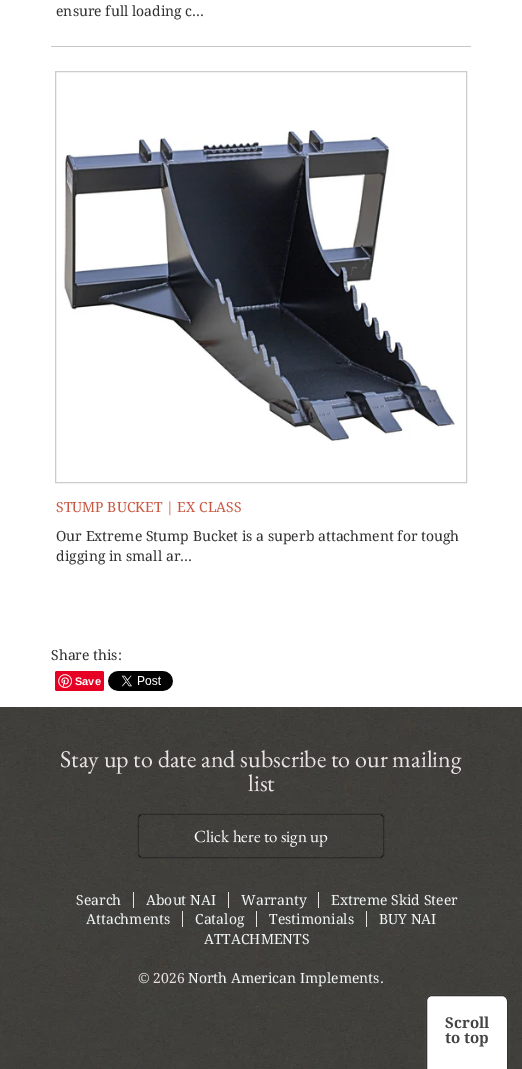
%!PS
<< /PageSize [522 1069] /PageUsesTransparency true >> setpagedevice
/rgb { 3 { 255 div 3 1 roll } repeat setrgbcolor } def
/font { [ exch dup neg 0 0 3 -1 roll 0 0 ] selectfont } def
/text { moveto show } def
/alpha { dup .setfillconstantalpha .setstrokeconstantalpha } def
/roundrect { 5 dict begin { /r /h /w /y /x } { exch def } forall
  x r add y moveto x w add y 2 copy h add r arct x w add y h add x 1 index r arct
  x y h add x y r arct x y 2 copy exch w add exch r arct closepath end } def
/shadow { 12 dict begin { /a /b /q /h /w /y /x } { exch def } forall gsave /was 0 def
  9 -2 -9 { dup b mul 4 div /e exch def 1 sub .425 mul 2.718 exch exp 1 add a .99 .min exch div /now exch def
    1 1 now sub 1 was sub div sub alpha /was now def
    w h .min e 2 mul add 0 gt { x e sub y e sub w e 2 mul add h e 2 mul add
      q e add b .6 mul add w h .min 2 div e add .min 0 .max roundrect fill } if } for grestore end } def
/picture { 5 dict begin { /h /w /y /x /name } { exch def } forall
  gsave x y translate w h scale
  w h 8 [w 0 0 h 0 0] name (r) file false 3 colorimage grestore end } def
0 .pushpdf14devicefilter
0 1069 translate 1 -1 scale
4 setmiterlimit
255 255 255 rgb
0 0 522 1069 rectfill
196 201 197 rgb
51 46 420 1 rectfill
(img_01.rgb) 63 130 395 311 picture
204 204 204 rgb
55.5 71.5 411 411 rectstroke
230 0 35 rgb
55 671 49 20 2 roundrect fill
(img_02.rgb) 58 674 14 14 picture
(img_03.rgb) 108 671 65 20 picture
(img_04.rgb) 0 707 522 362 picture
gsave
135 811 moveto 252 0 rlineto 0 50 rlineto -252 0 rlineto closepath 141 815 moveto 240 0 rlineto 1 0 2 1 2 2 rcurveto 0 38 rlineto 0 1 -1 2 -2 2 rcurveto -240 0 rlineto -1 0 -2 -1 -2 -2 rcurveto 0 -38 rlineto 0 -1 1 -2 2 -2 rcurveto closepath eoclip newpath
0 0 0 rgb
139 815 244 42 2 1 1 shadow
grestore
233 228 228 rgb
133 892 1 16 rectfill
228 892 1 16 rectfill
318 892 1 16 rectfill
182 911 1 16 rectfill
256 911 1 16 rectfill
366 911 1 16 rectfill
85 85 85 rgb
427 996 80 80 5 1.5 1 shadow
255 255 255 rgb
432 995.5 moveto 70 0 rlineto 3 0 5.5 2.5 5.5 5.5 rcurveto 0 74.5 rlineto -81 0 rlineto 0 -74.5 rlineto 0 -3 2.5 -5.5 5.5 -5.5 rcurveto closepath gsave fill grestore
51 51 51 rgb
stroke
/DroidSerif-Regular 14 font
48 48 48 rgb
(ensure full loading c...) 56 16 text
202 88 66 rgb
(STUMP BUCKET | EX CLASS) 56 512 text
48 48 48 rgb
(Our Extreme Stump Bucket is a superb attachment for tough) 56 541 text
(digging in small ar...) 56 561 text
(Share this:) 51 660 text
/LiberationSans-Bold 11 font
255 255 255 rgb
(Save) 75 685 text
/EBGaramond-Regular 24 font
233 228 228 rgb
(Stay up to date and subscribe to our mailing) 60 767 text
(list) 248 791 text
/EBGaramond-Regular 17 font
255 255 255 rgb
(Click here to sign up) 194 842 text
/DroidSerif-Regular 14 font
239 245 244 rgb
(Search) 76 905 text
(About NAI) 146 905 text
(Warranty) 241 905 text
(Extreme Skid Steer) 331 905 text
(Attachments) 86 924 text
(Catalog) 195 924 text
(Testimonials) 269 924 text
(BUY NAI) 379 924 text
(ATTACHMENTS) 204 944 text
233 221 221 rgb
(© 2026) 138 983 text
239 245 244 rgb
(North American Implements.) 188 983 text
/DroidSerif-Bold 15 font
68 68 68 rgb
(Scroll) 445 1028 text
(to top) 445 1043 text
.poppdf14devicefilter showpage
